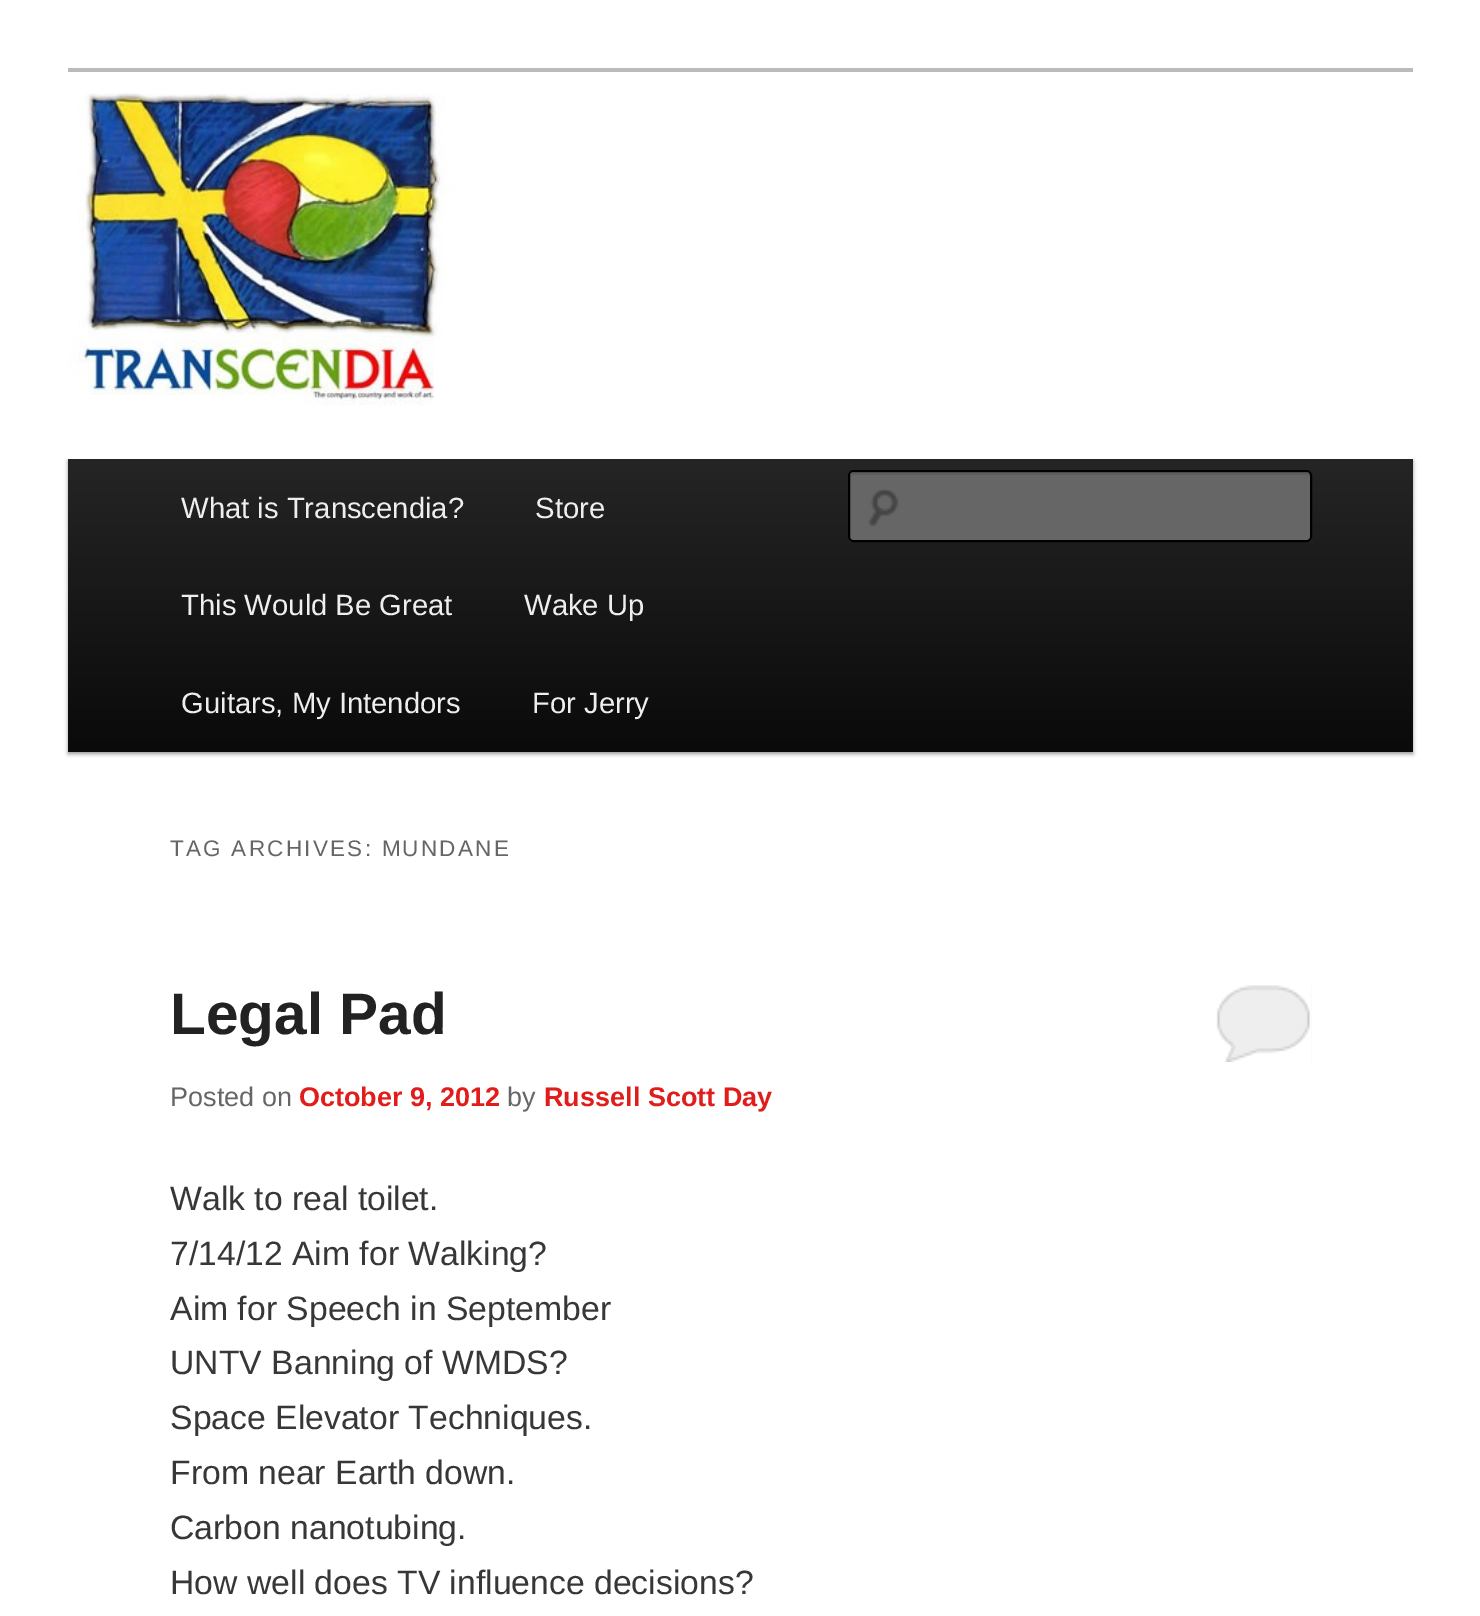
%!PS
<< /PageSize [1480 1616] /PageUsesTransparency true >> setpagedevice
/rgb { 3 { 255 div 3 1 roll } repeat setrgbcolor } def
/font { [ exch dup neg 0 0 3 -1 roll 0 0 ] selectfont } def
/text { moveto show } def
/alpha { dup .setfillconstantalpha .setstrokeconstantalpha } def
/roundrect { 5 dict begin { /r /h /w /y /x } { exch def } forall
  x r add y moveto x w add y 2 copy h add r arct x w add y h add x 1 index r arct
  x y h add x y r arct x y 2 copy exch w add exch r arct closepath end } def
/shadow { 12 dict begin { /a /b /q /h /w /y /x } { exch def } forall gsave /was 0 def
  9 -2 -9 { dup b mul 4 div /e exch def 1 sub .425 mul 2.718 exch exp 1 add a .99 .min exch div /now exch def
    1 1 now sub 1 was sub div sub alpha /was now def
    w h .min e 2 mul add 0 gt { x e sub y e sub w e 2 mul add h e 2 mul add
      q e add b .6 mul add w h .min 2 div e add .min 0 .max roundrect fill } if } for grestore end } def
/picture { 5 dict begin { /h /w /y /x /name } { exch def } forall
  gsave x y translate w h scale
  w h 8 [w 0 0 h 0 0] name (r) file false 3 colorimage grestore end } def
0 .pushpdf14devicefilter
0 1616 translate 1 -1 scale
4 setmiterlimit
255 255 255 rgb
0 0 1480 1616 rectfill
187 187 187 rgb
68 68 1345 4 rectfill
0 0 0 rgb
68 461 1345 293 0 2 0.4 shadow
(img_01.rgb) 67 72 1346 387 picture
gsave 68 459 moveto 1345 0 rlineto 0 293 rlineto -1345 0 rlineto closepath clip newpath
<< /ShadingType 2 /ColorSpace /DeviceRGB /Coords [740 459 740 752] /Extend [true true] /Function << /FunctionType 2 /Domain [0 1] /C0 [0.145 0.145 0.145] /C1 [0.039 0.039 0.039] /N 1 >> >> shfill grestore
102 102 102 rgb
848 470 464 72 5 roundrect fill
(img_02.rgb) 868 489 31 38 picture
92 92 92 rgb
853 475 moveto 454 0 rlineto 1 0 3 1 3 2 rcurveto 0 -2 rlineto 0 -1 -1 -2 -2 -2 rcurveto -455 0 rlineto -1 0 -2 1 -2 2 rcurveto 0 1 rlineto closepath fill
0 0 0 rgb
2 setlinewidth
849 471 462 70 4 roundrect stroke
238 238 238 rgb
1216 981 96 81 rectfill
(img_03.rgb) 1215 981 97 81 picture
/LiberationSans-Regular 29.25 font
(What is Transcendia?) 181 518 text
(Store) 535 518 text
(This Would Be Great) 181 615 text
(Wake Up) 524 615 text
(Guitars, My Intendors) 181 713 text
(For Jerry) 532 713 text
/LiberationSans-Regular 22.5 font
102 102 102 rgb
170 856 moveto 2.25 0 (TAG ARCHIVES: MUNDANE) ashow
/LiberationSans-Bold 58.5 font
34 34 34 rgb
(Legal Pad) 170 1034 text
/LiberationSans-Regular 27 font
102 102 102 rgb
(Posted on) 170 1106 text
/LiberationSans-Bold 27 font
224 29 27 rgb
(October 9, 2012) 299 1106 text
/LiberationSans-Regular 27 font
102 102 102 rgb
(by) 507 1106 text
/LiberationSans-Bold 27 font
224 29 27 rgb
(Russell Scott Day) 544 1106 text
/LiberationSans-Regular 33.75 font
55 55 55 rgb
(Walk to real toilet.) 170 1210 text
(7/14/12 Aim for Walking?) 170 1265 text
(Aim for Speech in September) 170 1320 text
(UNTV Banning of WMDS?) 170 1374 text
(Space Elevator Techniques.) 170 1429 text
(From near Earth down.) 170 1484 text
(Carbon nanotubing.) 170 1539 text
(How well does TV influence decisions?) 170 1594 text
.poppdf14devicefilter showpage
